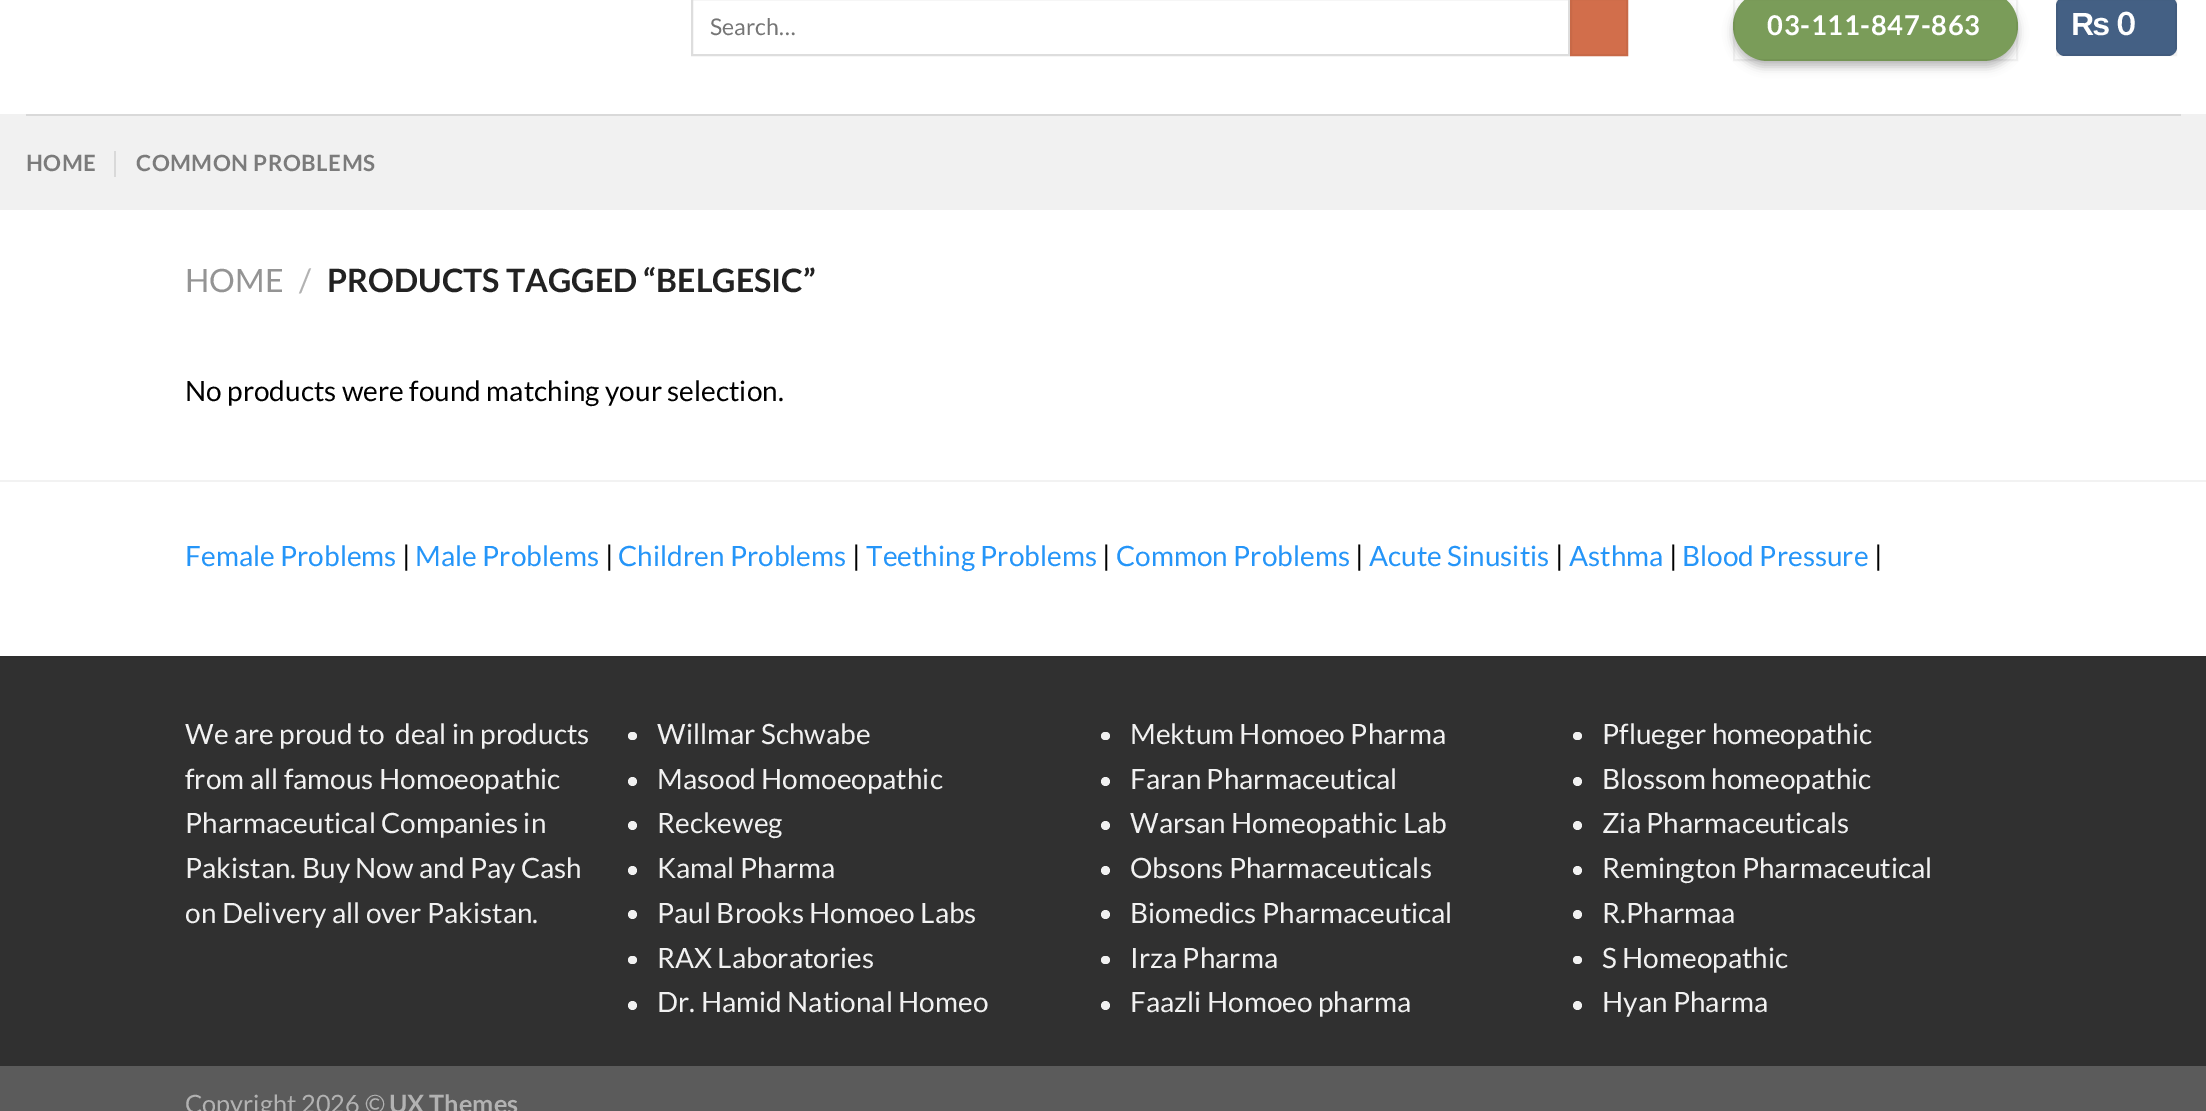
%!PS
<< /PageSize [2206 1111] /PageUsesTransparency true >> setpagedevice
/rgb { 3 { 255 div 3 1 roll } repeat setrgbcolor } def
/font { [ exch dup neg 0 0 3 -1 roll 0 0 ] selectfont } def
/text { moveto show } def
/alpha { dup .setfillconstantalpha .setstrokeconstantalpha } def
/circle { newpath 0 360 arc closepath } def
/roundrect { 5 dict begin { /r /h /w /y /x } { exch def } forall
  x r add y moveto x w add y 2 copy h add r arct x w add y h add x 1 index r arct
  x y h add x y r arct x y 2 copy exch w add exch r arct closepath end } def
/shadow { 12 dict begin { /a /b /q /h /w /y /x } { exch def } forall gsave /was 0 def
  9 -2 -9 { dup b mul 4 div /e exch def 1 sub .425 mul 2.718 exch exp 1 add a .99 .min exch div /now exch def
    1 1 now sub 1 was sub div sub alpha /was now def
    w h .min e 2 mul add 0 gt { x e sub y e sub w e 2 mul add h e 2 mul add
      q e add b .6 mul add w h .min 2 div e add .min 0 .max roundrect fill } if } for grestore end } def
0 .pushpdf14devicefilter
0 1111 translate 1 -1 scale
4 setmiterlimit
255 255 255 rgb
0 0 2206 1111 rectfill
221 221 221 rgb
2 setlinewidth
692 -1 877 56 rectstroke
210 110 75 rgb
1571 -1 moveto 56 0 rlineto 0 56 rlineto -56 0 rlineto closepath gsave fill grestore
200 105 71 rgb
stroke
0 0 0 rgb
1733 -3 285 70 35 5 0.23 shadow
1740 4 271 56 28 5 0.16 shadow
122 156 89 rgb
1733 -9 285 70 35 roundrect fill
0.05 alpha
0 0 0 rgb
1734 -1 283 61 rectstroke
1 alpha
68 96 132 rgb
2056 -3 121 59 9 roundrect fill
0.05 alpha
0 0 0 rgb
2057 -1 119 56 rectstroke
1 alpha
241 241 241 rgb
0 114 2206 96 rectfill
217 217 217 rgb
26 114 2155 2 rectfill
114 151 2 26 rectfill
242 242 242 rgb
0 480 2206 2 rectfill
48 48 48 rgb
0 658 2206 408 rectfill
46 46 46 rgb
0 656 2206 2 rectfill
241 241 241 rgb
628 732 9 8 4 roundrect fill
632.5 781.5 4.5 circle fill
632.5 825.5 4.5 circle fill
632.5 870.5 4.5 circle fill
632.5 914.5 4.5 circle fill
628 956 9 8 4 roundrect fill
632.5 1005.5 4.5 circle fill
1101 732 9 8 4 roundrect fill
1105.5 781.5 4.5 circle fill
1105.5 825.5 4.5 circle fill
1105.5 870.5 4.5 circle fill
1105.5 914.5 4.5 circle fill
1101 956 9 8 4 roundrect fill
1105.5 1005.5 4.5 circle fill
1573 732 9 8 4 roundrect fill
1577.5 781.5 4.5 circle fill
1577.5 825.5 4.5 circle fill
1577.5 870.5 4.5 circle fill
1577.5 914.5 4.5 circle fill
1573 956 9 8 4 roundrect fill
1577.5 1005.5 4.5 circle fill
91 91 91 rgb
0 1066 2206 45 rectfill
/Lato-Regular 23 font
117 117 117 rgb
(Search…) 710 35 text
/Lato-Bold 27.25 font
255 255 255 rgb
1767 35 moveto 0.75 0 (03-111-847-863) ashow
/LiberationSans-Bold 32 font
2071 35 moveto 1 0 (₨) ashow
/Lato-Bold 32 font
2117 35 moveto 1 0 (0) ashow
/Lato-Bold 22.4 font
123 123 123 rgb
26 171 moveto 0.5 0 (HOME) ashow
136 171 moveto 0.5 0 (COMMON PROBLEMS) ashow
/Lato-Regular 32.25 font
148 148 148 rgb
(HOME) 185 292 text
178 178 178 rgb
(/) 299 292 text
/Lato-Bold 32.25 font
34 34 34 rgb
(PRODUCTS TAGGED “BELGESIC”) 327 292 text
/Lato-Regular 28 font
0 0 0 rgb
(No products were found matching your selection.) 185 401 text
37 149 248 rgb
(Female Problems) 185 566 text
0 0 0 rgb
(|) 402 566 text
37 149 248 rgb
(Male Problems) 415 566 text
0 0 0 rgb
(|) 605 566 text
37 149 248 rgb
(Children Problems) 618 566 text
0 0 0 rgb
(|) 852 566 text
37 149 248 rgb
(Teething Problems) 866 566 text
0 0 0 rgb
(|) 1102 566 text
37 149 248 rgb
(Common Problems) 1116 566 text
0 0 0 rgb
(|) 1355 566 text
37 149 248 rgb
(Acute Sinusitis) 1369 566 text
0 0 0 rgb
(|) 1555 566 text
37 149 248 rgb
(Asthma) 1569 566 text
0 0 0 rgb
(|) 1669 566 text
37 149 248 rgb
(Blood Pressure) 1682 566 text
0 0 0 rgb
(|) 1874 566 text
241 241 241 rgb
(We are proud to  deal in products) 185 744 text
(from all famous Homoeopathic) 185 789 text
(Pharmaceutical Companies in) 185 833 text
(Pakistan. Buy Now and Pay Cash) 185 878 text
(on Delivery all over Pakistan.) 185 923 text
(Willmar Schwabe) 657 744 text
(Masood Homoeopathic) 657 789 text
(Reckeweg) 657 833 text
(Kamal Pharma) 657 878 text
(Paul Brooks Homoeo Labs) 657 923 text
(RAX Laboratories) 657 968 text
(Dr. Hamid National Homeo) 657 1012 text
(Mektum Homoeo Pharma) 1130 744 text
(Faran Pharmaceutical) 1130 789 text
(Warsan Homeopathic Lab) 1130 833 text
(Obsons Pharmaceuticals) 1130 878 text
(Biomedics Pharmaceutical) 1130 923 text
(Irza Pharma) 1130 968 text
(Faazli Homoeo pharma) 1130 1012 text
(Pflueger homeopathic) 1602 744 text
(Blossom homeopathic) 1602 789 text
(Zia Pharmaceuticals) 1602 833 text
(Remington Pharmaceutical) 1602 878 text
(R.Pharmaa) 1602 923 text
(S Homeopathic) 1602 968 text
(Hyan Pharma) 1602 1012 text
/Lato-Regular 25.25 font
178 178 178 rgb
(Copyright 2026 ©) 185 1113 text
/Lato-Bold 25.25 font
(UX Themes) 389 1113 text
.poppdf14devicefilter showpage
